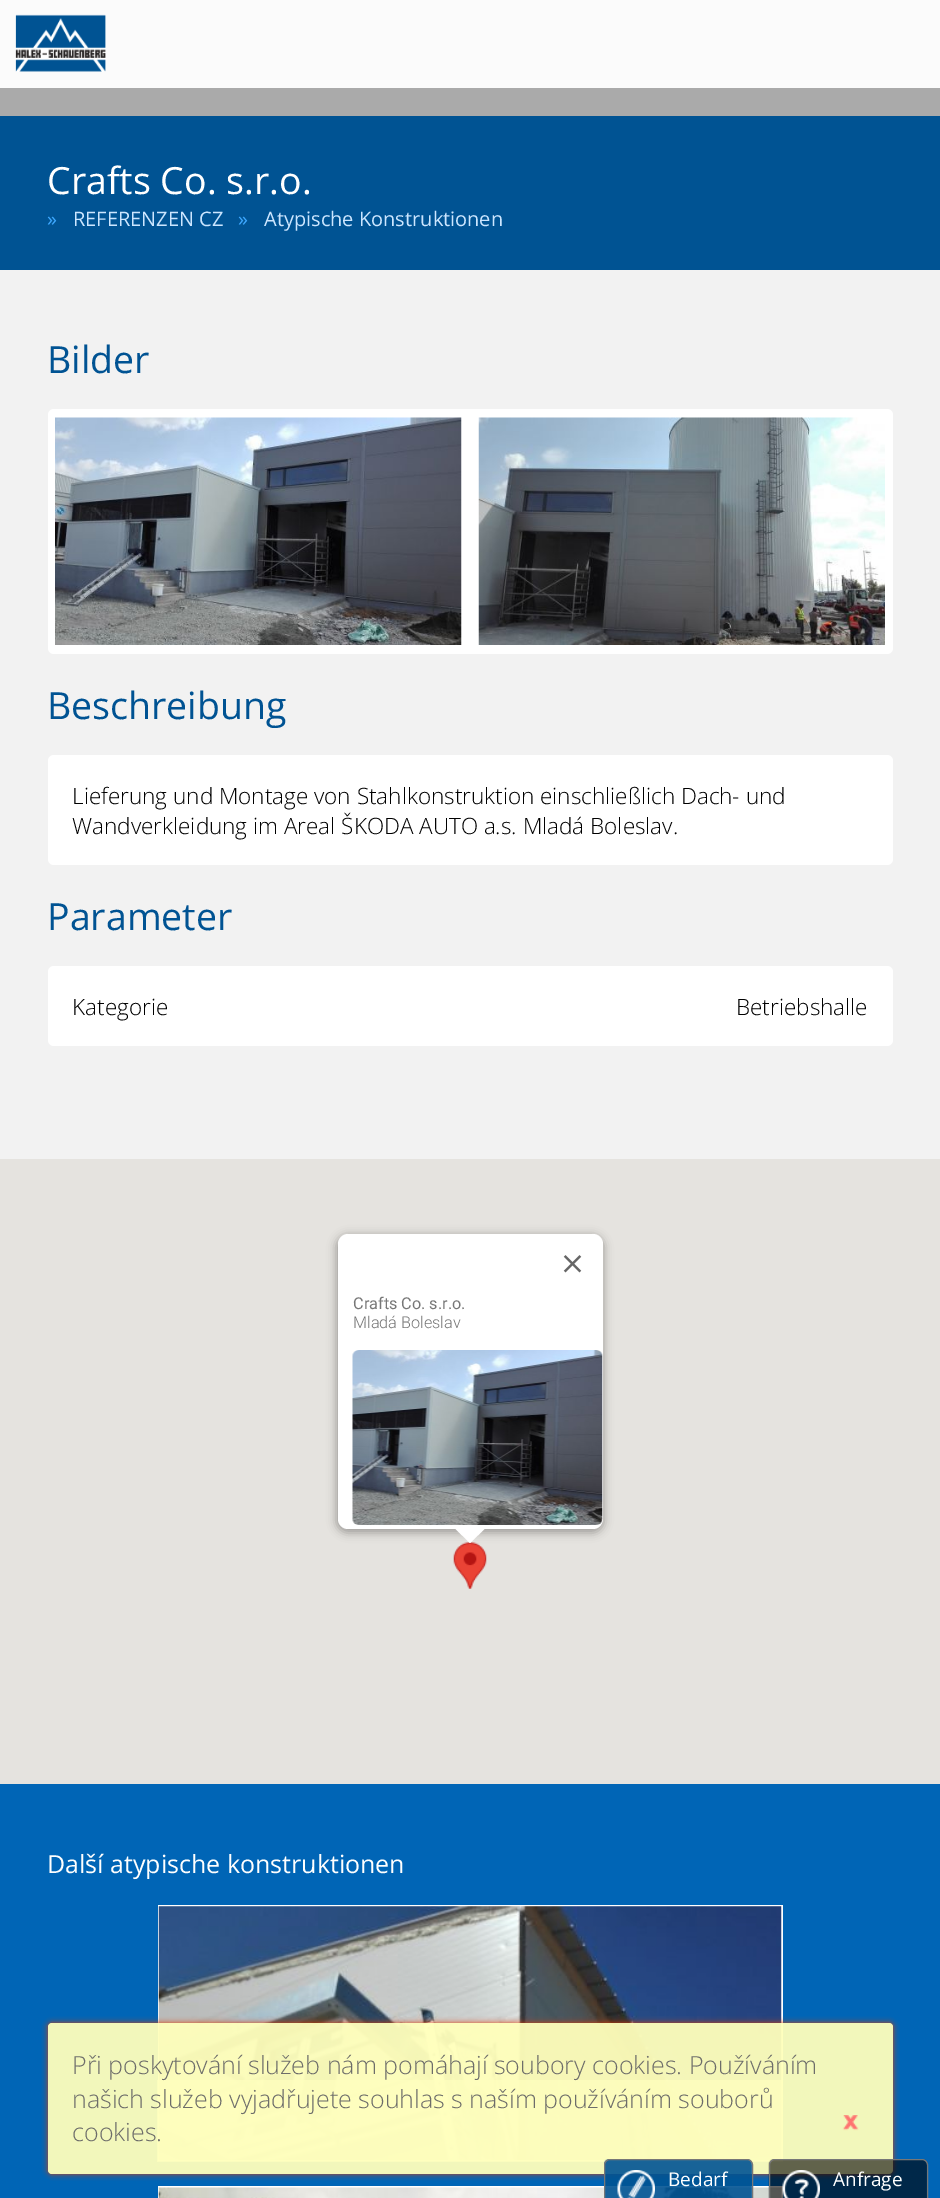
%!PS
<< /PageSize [940 2198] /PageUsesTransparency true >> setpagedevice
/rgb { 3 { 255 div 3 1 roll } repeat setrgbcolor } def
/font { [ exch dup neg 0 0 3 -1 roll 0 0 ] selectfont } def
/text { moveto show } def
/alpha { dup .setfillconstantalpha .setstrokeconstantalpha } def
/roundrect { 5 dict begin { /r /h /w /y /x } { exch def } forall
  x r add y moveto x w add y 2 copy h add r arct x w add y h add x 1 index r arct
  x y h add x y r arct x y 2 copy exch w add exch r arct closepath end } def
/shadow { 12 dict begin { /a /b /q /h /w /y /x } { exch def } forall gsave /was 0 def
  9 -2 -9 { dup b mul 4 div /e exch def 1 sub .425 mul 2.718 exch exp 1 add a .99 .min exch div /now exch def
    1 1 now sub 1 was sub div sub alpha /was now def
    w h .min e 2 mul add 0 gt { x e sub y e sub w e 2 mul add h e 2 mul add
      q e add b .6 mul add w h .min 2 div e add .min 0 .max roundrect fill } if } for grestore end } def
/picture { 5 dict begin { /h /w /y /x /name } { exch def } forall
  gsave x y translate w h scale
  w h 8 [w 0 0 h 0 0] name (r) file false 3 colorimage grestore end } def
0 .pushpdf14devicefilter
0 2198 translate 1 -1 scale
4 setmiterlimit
170 170 170 rgb
0 0 940 2198 rectfill
251 251 251 rgb
0 0 940 88 rectfill
(img_01.rgb) 15 14 91 58 picture
0 83 147 rgb
0 116 940 154 rectfill
242 242 242 rgb
0 270 940 889 rectfill
255 255 255 rgb
48 409 845 245 6 roundrect fill
(img_02.rgb) 55 417 407 228 picture
(img_03.rgb) 478 417 407 228 picture
48 755 845 110 6 roundrect fill
48 966 845 80 6 roundrect fill
229 227 223 rgb
0 1159 940 625 rectfill
(img_06.rgb) 453 1542 34 47 picture
0 0 0 rgb
336 1235 268 298 11 4.5 0.3 shadow
255 255 255 rgb
338 1234 265 295 10 roundrect fill
(img_04.rgb) 563 1255 19 18 picture
(img_05.rgb) 352 1350 251 175 picture
455 1528 moveto 0 0.5 rlineto 15 14.5 rlineto 15.5 -15 rlineto closepath fill
0 101 182 rgb
0 1784 940 414 rectfill
255 255 255 rgb
158 1905 625 256 rectfill
(img_07.rgb) 158 1906 624 254 picture
0.7 alpha
157 2080 626 82 rectfill
1 alpha
158 2186 625 12 rectfill
(img_08.rgb) 158 2187 624 11 picture
gsave
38 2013 moveto 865 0 rlineto 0 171 rlineto -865 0 rlineto closepath 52 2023 moveto 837 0 rlineto 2 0 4 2 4 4 rcurveto 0 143 rlineto 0 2 -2 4 -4 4 rcurveto -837 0 rlineto -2 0 -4 -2 -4 -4 rcurveto 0 -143 rlineto 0 -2 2 -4 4 -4 rcurveto closepath eoclip newpath
226 61 4 rgb
48 2023 845 151 4 3 0.95 shadow
grestore
0.95 alpha
255 255 187 rgb
48 2023 845 151 4 roundrect fill
1 alpha
(img_09.rgb) 842 2115 17 16 picture
(img_10.rgb) 604 2159 149 39 picture
119 119 119 rgb
604.5 2159.5 148 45 5.5 roundrect stroke
(img_11.rgb) 617 2170 38 28 picture
(img_12.rgb) 768 2159 160 39 picture
769.5 2159.5 158 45 5.5 roundrect stroke
(img_13.rgb) 782 2170 38 28 picture
/OpenSans-Regular 37.5 font
255 255 255 rgb
(Crafts Co. s.r.o.) 47 194 text
/OpenSans-Regular 20 font
61 168 255 rgb
(») 47 226 text
204 230 255 rgb
(REFERENZEN CZ) 73 226 text
61 168 255 rgb
(») 238 226 text
204 230 255 rgb
(Atypische Konstruktionen) 264 226 text
/OpenSans-Regular 37.5 font
0 83 147 rgb
(Bilder) 47 373 text
(Beschreibung) 47 719 text
/OpenSans-Light 22.5 font
0 0 0 rgb
(Lieferung und Montage von Stahlkonstruktion einschließlich Dach- und) 72 804 text
(Wandverkleidung im Areal ŠKODA AUTO a.s. Mladá Boleslav.) 72 834 text
/OpenSans-Regular 37.5 font
0 83 147 rgb
(Parameter) 47 930 text
/OpenSans-Light 22.5 font
0 0 0 rgb
(Kategorie) 72 1015 text
(Betriebshalle) 736 1015 text
/Roboto-Regular 16.25 font
119 119 119 rgb
(Crafts Co. s.r.o.) 353 1309 text
/Roboto-Light 16.25 font
(Mladá Boleslav) 353 1328 text
/OpenSans-Regular 25 font
255 255 255 rgb
(Další atypische konstruktionen) 47 1873 text
/OpenSans-Light 25 font
109 109 106 rgb
(Při poskytování služeb nám pomáhají soubory cookies. Používáním) 72 2074 text
(našich služeb vyjadřujete souhlas s naším používáním souborů) 72 2108 text
(cookies.) 72 2141 text
/OpenSans-Regular 19 font
255 255 255 rgb
(Bedarf) 668 2186 text
(Anfrage) 833 2186 text
.poppdf14devicefilter showpage
